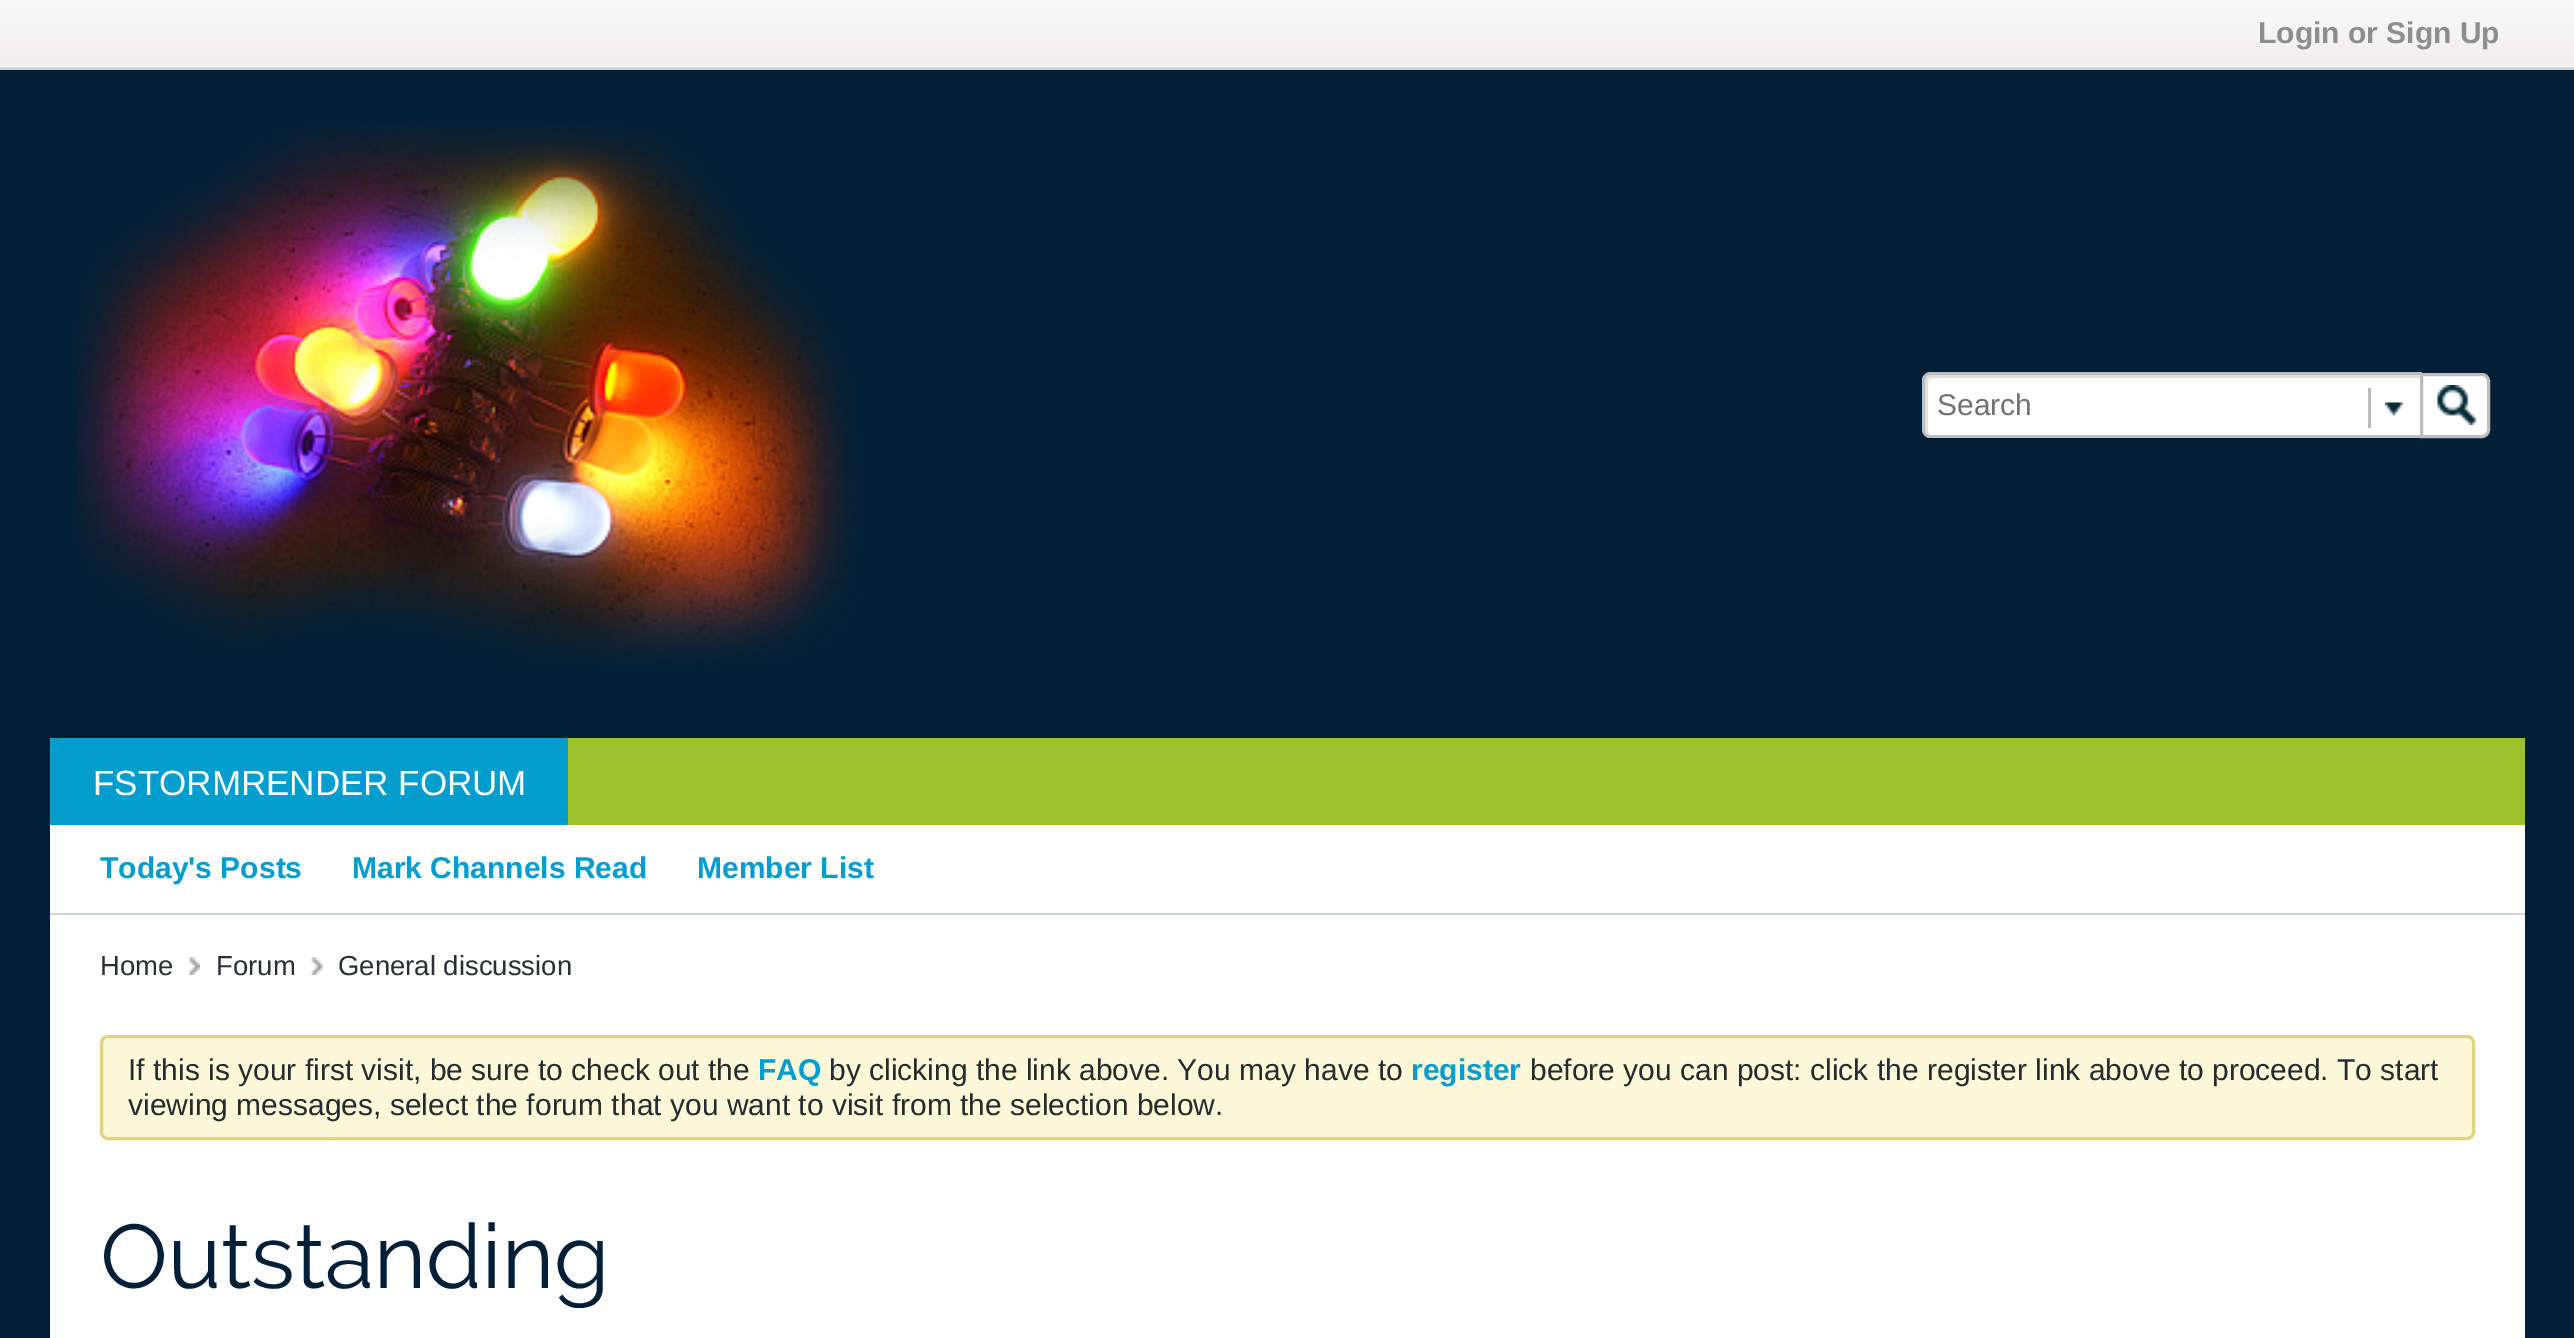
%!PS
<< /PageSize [2574 1338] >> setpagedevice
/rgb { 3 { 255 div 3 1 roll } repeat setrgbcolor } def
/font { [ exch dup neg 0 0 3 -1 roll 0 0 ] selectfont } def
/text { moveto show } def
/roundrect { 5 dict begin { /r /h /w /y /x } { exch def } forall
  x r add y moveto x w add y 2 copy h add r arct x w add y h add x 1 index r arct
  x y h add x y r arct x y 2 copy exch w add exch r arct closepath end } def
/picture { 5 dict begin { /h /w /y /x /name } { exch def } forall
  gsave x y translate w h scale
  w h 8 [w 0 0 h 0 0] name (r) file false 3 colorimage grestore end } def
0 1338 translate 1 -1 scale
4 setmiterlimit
1 31 54 rgb
0 0 2574 1338 rectfill
241 239 240 rgb
0 0 2574 70 rectfill
(img_01.rgb) 0 0 2574 70 picture
50 0 2475 70 rectfill
(img_02.rgb) 50 0 2475 70 picture
(img_03.rgb) 75 125 786 540 picture
255 255 255 rgb
1931 373 moveto 492 0 rlineto 0 65 rlineto -492 0 rlineto -4.5 0 -8 -3.5 -8 -8 rcurveto 0 -49 rlineto 0 -4.5 3.5 -8 8 -8 rcurveto closepath fill
224 224 224 rgb
1932 378 moveto 491 0 rlineto 0 -3 rlineto -493 0 rlineto -3 0 -5 2 -5 5 rcurveto 0 50 rlineto 0 2 1 4 4 5 rcurveto -1 -3 rlineto 0 -50 rlineto 0 -2 2 -4 4 -4 rcurveto closepath fill
189 189 189 rgb
1930 372 moveto 492 0 rlineto 0 66 rlineto -492 0 rlineto -4 0 -8 -4 -8 -8 rcurveto 0 -50 rlineto 0 -4 4 -8 8 -8 rcurveto closepath 1930 375 moveto 492 0 rlineto 0 60 rlineto -492 0 rlineto -3 0 -5 -2 -5 -5 rcurveto 0 -50 rlineto 0 -3 2 -5 5 -5 rcurveto closepath eofill
2368 388 3 40 rectfill
(img_04.rgb) 2385 402 19 14 picture
255 255 255 rgb
2421.5 374.5 moveto 60.5 0 rlineto 3.5 0 6.5 3 6.5 6.5 rcurveto 0 49 rlineto 0 3.5 -3 6.5 -6.5 6.5 rcurveto -60.5 0 rlineto closepath gsave fill grestore
189 189 189 rgb
3 setlinewidth
stroke
(img_05.rgb) 2437 385 41 40 picture
157 192 45 rgb
50 738 2475 87 rectfill
1 157 206 rgb
52.5 738 moveto 513 0 rlineto 1.5 0 2.5 1 2.5 2.5 rcurveto 0 84.5 rlineto -518 0 rlineto 0 -84.5 rlineto 0 -1.5 1 -2.5 2.5 -2.5 rcurveto closepath fill
255 255 255 rgb
50 825 2475 88 rectfill
205 212 215 rgb
50 913 2475 2 rectfill
255 255 255 rgb
50 915 2475 423 rectfill
(img_06.rgb) 187 957 13 18 picture
(img_07.rgb) 310 957 13 18 picture
252 247 215 rgb
101.5 1036.5 2372 102 6.5 roundrect gsave fill grestore
225 212 126 rgb
stroke
/LiberationSans-Bold 30 font
142 142 142 rgb
(Login or Sign Up) 2258 43 text
/LiberationSans-Regular 30 font
114 114 114 rgb
(Search) 1937 415 text
/LiberationSans-Regular 35 font
255 255 255 rgb
(FSTORMRENDER FORUM) 93 795 text
/LiberationSans-Bold 30 font
1 157 206 rgb
(Today's Posts) 100 878 text
(Mark Channels Read) 352 878 text
(Member List) 697 878 text
/LiberationSans-Regular 27.5 font
42 46 53 rgb
(Home) 100 975 text
(Forum) 216 975 text
(General discussion) 338 975 text
/LiberationSans-Regular 30 font
37 44 47 rgb
(If this is your first visit, be sure to check out the) 128 1080 text
/LiberationSans-Bold 30 font
1 157 206 rgb
(FAQ) 758 1080 text
/LiberationSans-Regular 30 font
37 44 47 rgb
(by clicking the link above. You may have to) 829 1080 text
/LiberationSans-Bold 30 font
1 157 206 rgb
(register) 1411 1080 text
/LiberationSans-Regular 30 font
37 44 47 rgb
(before you can post: click the register link above to proceed. To start) 1530 1080 text
(viewing messages, select the forum that you want to visit from the selection below.) 128 1115 text
/Raleway-Regular 90 font
1 31 54 rgb
(Outstanding) 100 1288 text
showpage
